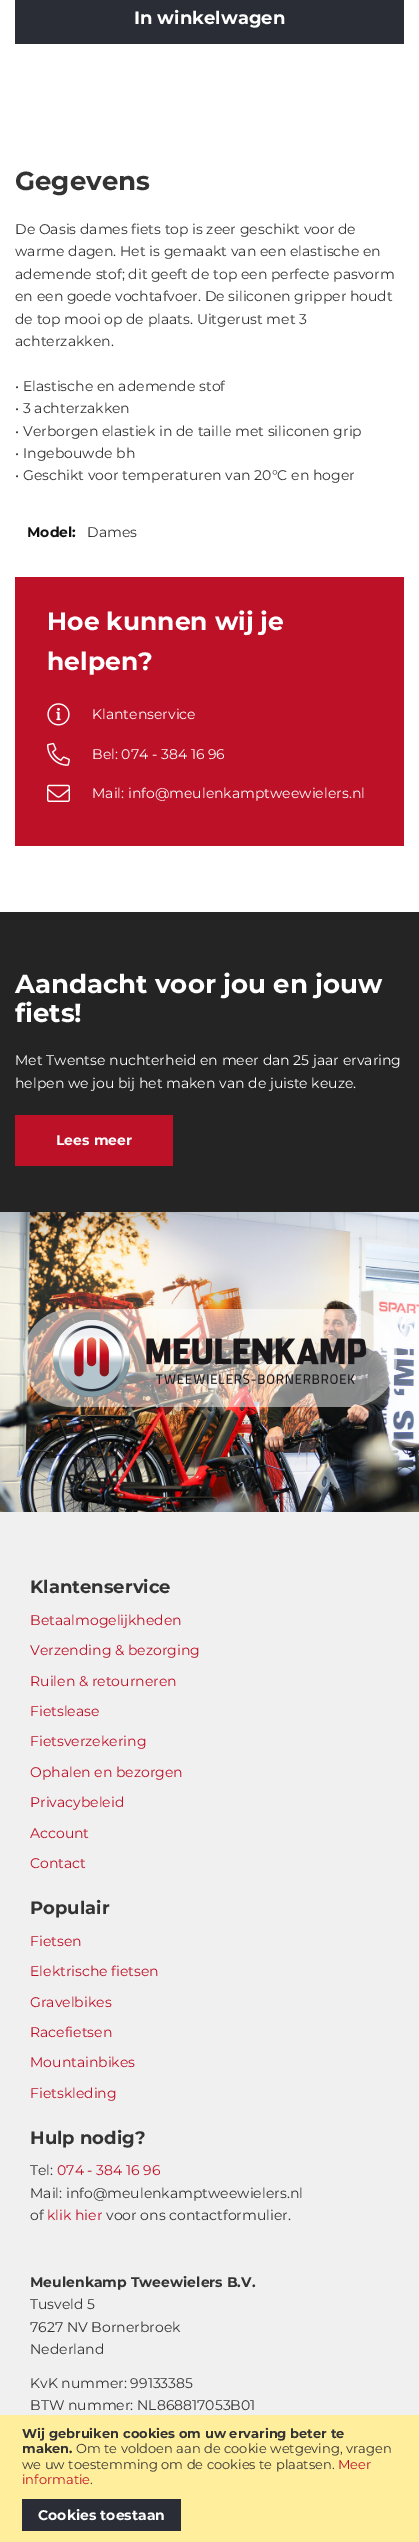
%!PS
<< /PageSize [419 2542] /PageUsesTransparency true >> setpagedevice
/rgb { 3 { 255 div 3 1 roll } repeat setrgbcolor } def
/font { [ exch dup neg 0 0 3 -1 roll 0 0 ] selectfont } def
/text { moveto show } def
/alpha { dup .setfillconstantalpha .setstrokeconstantalpha } def
/roundrect { 5 dict begin { /r /h /w /y /x } { exch def } forall
  x r add y moveto x w add y 2 copy h add r arct x w add y h add x 1 index r arct
  x y h add x y r arct x y 2 copy exch w add exch r arct closepath end } def
/picture { 5 dict begin { /h /w /y /x /name } { exch def } forall
  gsave x y translate w h scale
  w h 8 [w 0 0 h 0 0] name (r) file false 3 colorimage grestore end } def
0 .pushpdf14devicefilter
0 2542 translate 1 -1 scale
4 setmiterlimit
255 255 255 rgb
0 0 419 2542 rectfill
42 44 54 rgb
15 0 389 44 rectfill
189 17 40 rgb
15 577 389 269 rectfill
(img_01.rgb) 47 703 23 23 picture
(img_02.rgb) 47 742 23 24 picture
(img_03.rgb) 47 784 23 18 picture
36 36 36 rgb
0 912 419 300 rectfill
189 17 40 rgb
15 1115 158 51 rectfill
(img_04.rgb) 0 1212 419 300 picture
0.5 alpha
255 255 255 rgb
23 1309 374 98 48 roundrect fill
1 alpha
(img_05.rgb) 53 1320 314 77 picture
240 240 240 rgb
0 1512 419 903 rectfill
255 238 156 rgb
0 2415 419 127 rectfill
42 44 54 rgb
22 2499 159 32 rectfill
/Montserrat-Bold 18 font
255 255 255 rgb
(In winkelwagen) 134 24 text
/Montserrat-Bold 26 font
51 51 51 rgb
(Gegevens) 15 190 text
/Montserrat-Regular 14 font
(De Oasis dames fiets top is zeer geschikt voor de) 15 234 text
(warme dagen. Het is gemaakt van een elastische en) 15 256 text
(ademende stof; dit geeft de top een perfecte pasvorm) 15 279 text
(en een goede vochtafvoer. De siliconen gripper houdt) 15 301 text
(de top mooi op de plaats. Uitgerust met 3) 15 324 text
(achterzakken.) 15 346 text
(• Elastische en ademende stof) 15 391 text
(• 3 achterzakken) 15 413 text
(• Verborgen elastiek in de taille met siliconen grip) 15 436 text
(• Ingebouwde bh) 15 458 text
(• Geschikt voor temperaturen van 20°C en hoger) 15 480 text
/Montserrat-Bold 14 font
17 17 17 rgb
(Model:) 27 537 text
/Montserrat-Regular 14 font
51 51 51 rgb
(Dames) 87 537 text
/Montserrat-Bold 25 font
255 255 255 rgb
(Hoe kunnen wij je) 47 630 text
(helpen?) 47 670 text
/Montserrat-Regular 14 font
(Klantenservice) 92 719 text
(Bel: 074 - 384 16 96) 92 759 text
(Mail: info@meulenkamptweewielers.nl) 92 798 text
/Montserrat-Bold 26 font
(Aandacht voor jou en jouw) 15 993 text
(fiets!) 15 1022 text
/Montserrat-Regular 14 font
(Met Twentse nuchterheid en meer dan 25 jaar ervaring) 15 1065 text
(helpen we jou bij het maken van de juiste keuze.) 15 1088 text
/Montserrat-Bold 14 font
(Lees meer) 56 1145 text
/Montserrat-Bold 18 font
51 51 51 rgb
(Klantenservice) 30 1593 text
/Montserrat-Regular 14 font
189 17 40 rgb
(Betaalmogelijkheden) 30 1625 text
(Verzending & bezorging) 30 1655 text
(Ruilen & retourneren) 30 1686 text
(Fietslease) 30 1716 text
(Fietsverzekering) 30 1746 text
(Ophalen en bezorgen) 30 1777 text
(Privacybeleid) 30 1807 text
(Account) 30 1838 text
(Contact) 30 1868 text
/Montserrat-Bold 18 font
51 51 51 rgb
(Populair) 30 1914 text
/Montserrat-Regular 14 font
189 17 40 rgb
(Fietsen) 30 1946 text
(Elektrische fietsen) 30 1976 text
(Gravelbikes) 30 2007 text
(Racefietsen) 30 2037 text
(Mountainbikes) 30 2067 text
(Fietskleding) 30 2098 text
/Montserrat-Bold 18 font
51 51 51 rgb
(Hulp nodig?) 30 2144 text
/Montserrat-Regular 14 font
(Tel:) 30 2175 text
189 17 40 rgb
(074 - 384 16 96) 57 2175 text
51 51 51 rgb
(Mail: info@meulenkamptweewielers.nl) 30 2198 text
(of) 30 2220 text
189 17 40 rgb
(klik hier) 47 2220 text
51 51 51 rgb
(voor ons contactformulier.) 106 2220 text
/Montserrat-Bold 14 font
(Meulenkamp Tweewielers B.V.) 30 2287 text
/Montserrat-Regular 14 font
(Tusveld 5) 30 2309 text
(7627 NV Bornerbroek) 30 2332 text
(Nederland) 30 2354 text
(KvK nummer: 99133385) 30 2388 text
(BTW nummer: NL868817053B01) 30 2410 text
/Montserrat-Bold 13 font
(Wij gebruiken cookies om uw ervaring beter te) 22 2438 text
(maken.) 22 2453 text
/Montserrat-Regular 13 font
(Om te voldoen aan de cookie wetgeving, vragen) 76 2453 text
(we uw toestemming om de cookies te plaatsen.) 22 2469 text
189 17 40 rgb
(Meer) 338 2469 text
(informatie) 22 2484 text
51 51 51 rgb
(.) 90 2484 text
/Montserrat-Bold 14 font
255 255 255 rgb
(Cookies toestaan) 38 2520 text
.poppdf14devicefilter showpage
